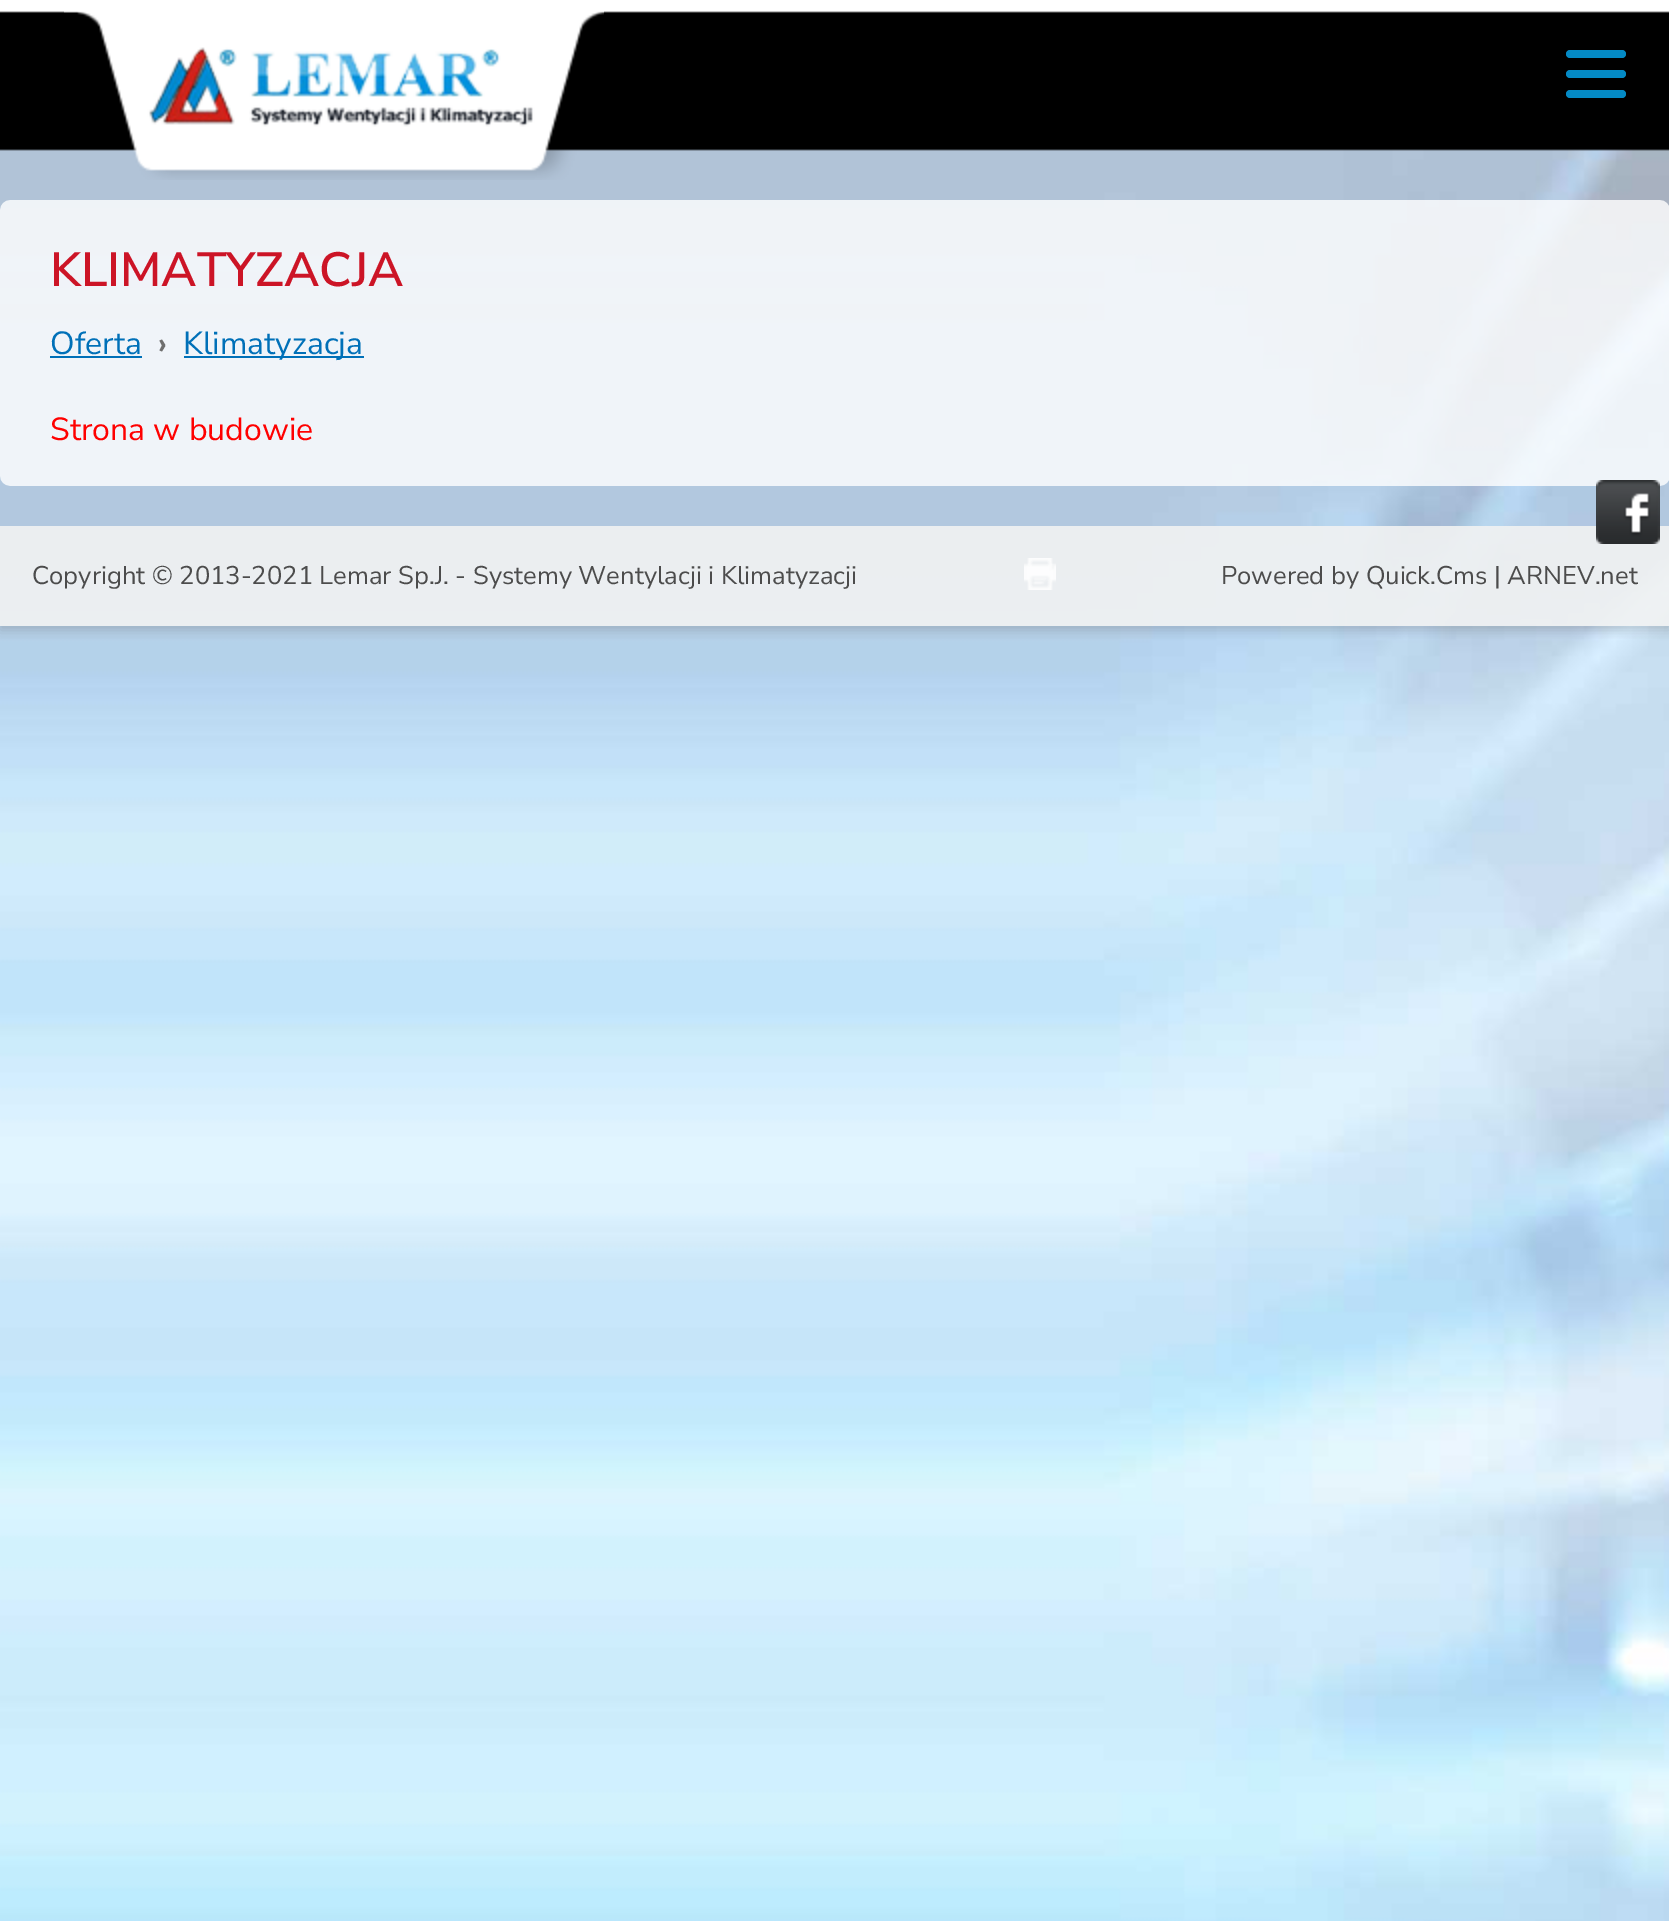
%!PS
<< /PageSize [1669 1921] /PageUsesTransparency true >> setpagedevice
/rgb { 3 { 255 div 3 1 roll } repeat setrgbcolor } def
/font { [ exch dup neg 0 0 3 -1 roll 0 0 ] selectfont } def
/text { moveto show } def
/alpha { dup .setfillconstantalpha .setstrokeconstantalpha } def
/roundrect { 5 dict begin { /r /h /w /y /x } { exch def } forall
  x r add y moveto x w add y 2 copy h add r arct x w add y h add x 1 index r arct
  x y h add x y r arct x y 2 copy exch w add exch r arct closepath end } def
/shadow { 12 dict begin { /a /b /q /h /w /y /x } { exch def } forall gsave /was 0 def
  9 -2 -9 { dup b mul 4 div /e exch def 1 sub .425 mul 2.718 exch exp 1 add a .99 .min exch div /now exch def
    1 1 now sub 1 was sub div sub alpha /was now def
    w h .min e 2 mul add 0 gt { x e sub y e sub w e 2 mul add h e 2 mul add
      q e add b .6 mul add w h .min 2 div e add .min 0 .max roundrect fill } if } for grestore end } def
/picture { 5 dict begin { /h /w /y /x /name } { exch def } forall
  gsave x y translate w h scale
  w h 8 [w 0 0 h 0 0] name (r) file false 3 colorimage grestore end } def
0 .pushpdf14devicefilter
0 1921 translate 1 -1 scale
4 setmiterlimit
255 255 255 rgb
0 0 1669 1921 rectfill
(img_01.rgb) 0 149 1669 1772 picture
gsave
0 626 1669 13 rectclip
100 100 100 rgb
0 4 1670 626 0 6 0.3 shadow
grestore
(img_02.rgb) 0 0 1669 151 picture
(img_03.rgb) 64 11 540 169 picture
4 138 197 rgb
1566 70 60 8 4 roundrect fill
1566 50 60 8 4 roundrect fill
1566 90 60 8 4 roundrect fill
(img_04.rgb) 0 200 1669 286 picture
0 112 184 rgb
50 356 92 2 rectfill
184 356 180 2 rectfill
0.9 alpha
241 242 242 rgb
0 526 1669 100 rectfill
1 alpha
(img_05.rgb) 1024 558 32 32 picture
(img_06.rgb) 1596 480 64 64 picture
/NunitoSans-SemiBold 48 font
204 20 38 rgb
(KLIMATYZACJA) 50 286 text
/NunitoSans-Regular 32 font
0 112 184 rgb
(Oferta) 50 354 text
/NunitoSans-Bold 32 font
110 110 110 rgb
(›) 158 354 text
/NunitoSans-Regular 32 font
0 112 184 rgb
(Klimatyzacja) 183 354 text
255 0 0 rgb
(Strona w budowie) 50 440 text
/NunitoSans-Regular 25.6 font
76 76 76 rgb
(Copyright © 2013-2021 Lemar Sp.J. - Systemy Wentylacji i Klimatyzacji) 32 584 text
(Powered by Quick.Cms | ARNEV.net) 1221 584 text
.poppdf14devicefilter showpage
